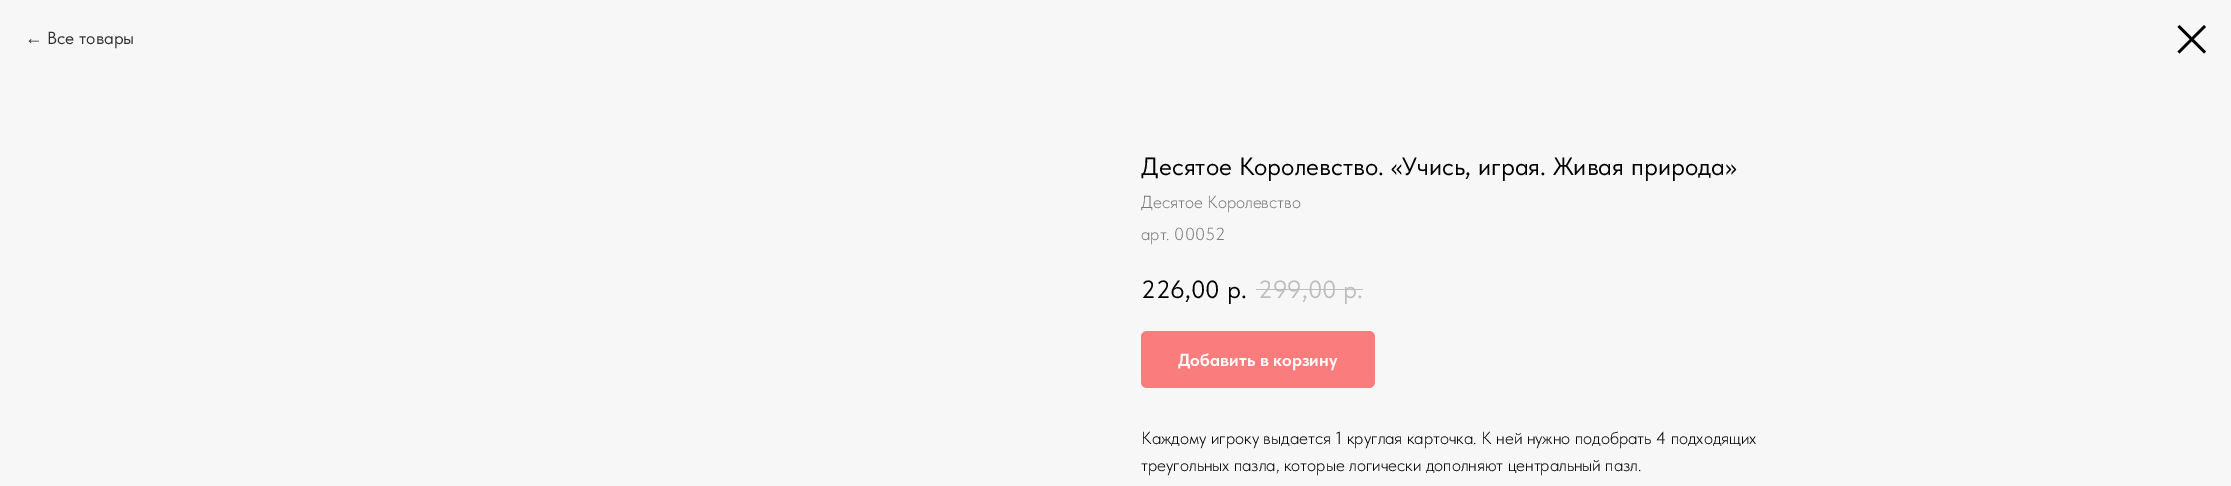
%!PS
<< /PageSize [2231 486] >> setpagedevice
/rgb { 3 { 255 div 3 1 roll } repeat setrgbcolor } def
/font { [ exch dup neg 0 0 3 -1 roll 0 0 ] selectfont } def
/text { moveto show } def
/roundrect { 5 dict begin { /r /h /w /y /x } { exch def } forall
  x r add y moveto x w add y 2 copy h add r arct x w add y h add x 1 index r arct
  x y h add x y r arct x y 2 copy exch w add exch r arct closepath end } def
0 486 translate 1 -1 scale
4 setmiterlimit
247 247 247 rgb
0 0 2231 486 rectfill
0 0 0 rgb
2177.5 27 moveto 2 -2 rlineto 26.5 26.5 rlineto -2 2 rlineto closepath eofill
2204 25 moveto 2 2 rlineto -26.5 26.5 rlineto -2 -2 rlineto closepath eofill
189 189 189 rgb
1256 289 107 1 rectfill
250 124 124 rgb
1141 331 234 57 6 roundrect fill
/LiberationSans-Regular 17.5 font
49 49 49 rgb
(←) 25 44 text
/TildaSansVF-Regular 17.5 font
(Все товары) 47 44 text
/TildaSansVF-Regular 25 font
0 0 0 rgb
(Десятое Королевство. «Учись, играя. Живая природа») 1141 175 text
/TildaSansVF-Light 17.5 font
119 119 119 rgb
(Десятое Королевство) 1141 208 text
(арт. 00052) 1141 240 text
/TildaSansVF-Regular 25 font
0 0 0 rgb
(226,00) 1141 298 text
(р.) 1227 298 text
189 189 189 rgb
(299,00) 1258 298 text
(р.) 1343 298 text
/TildaSansVF-Bold 17.5 font
250 250 250 rgb
(Добавить в корзину) 1178 366 text
/TildaSansVF-Light 17.5 font
0 0 0 rgb
(Каждому игроку выдается 1 круглая карточка. К ней нужно подобрать 4 подходящих) 1141 444 text
(треугольных пазла, которые логически дополняют центральный пазл.) 1141 471 text
showpage
